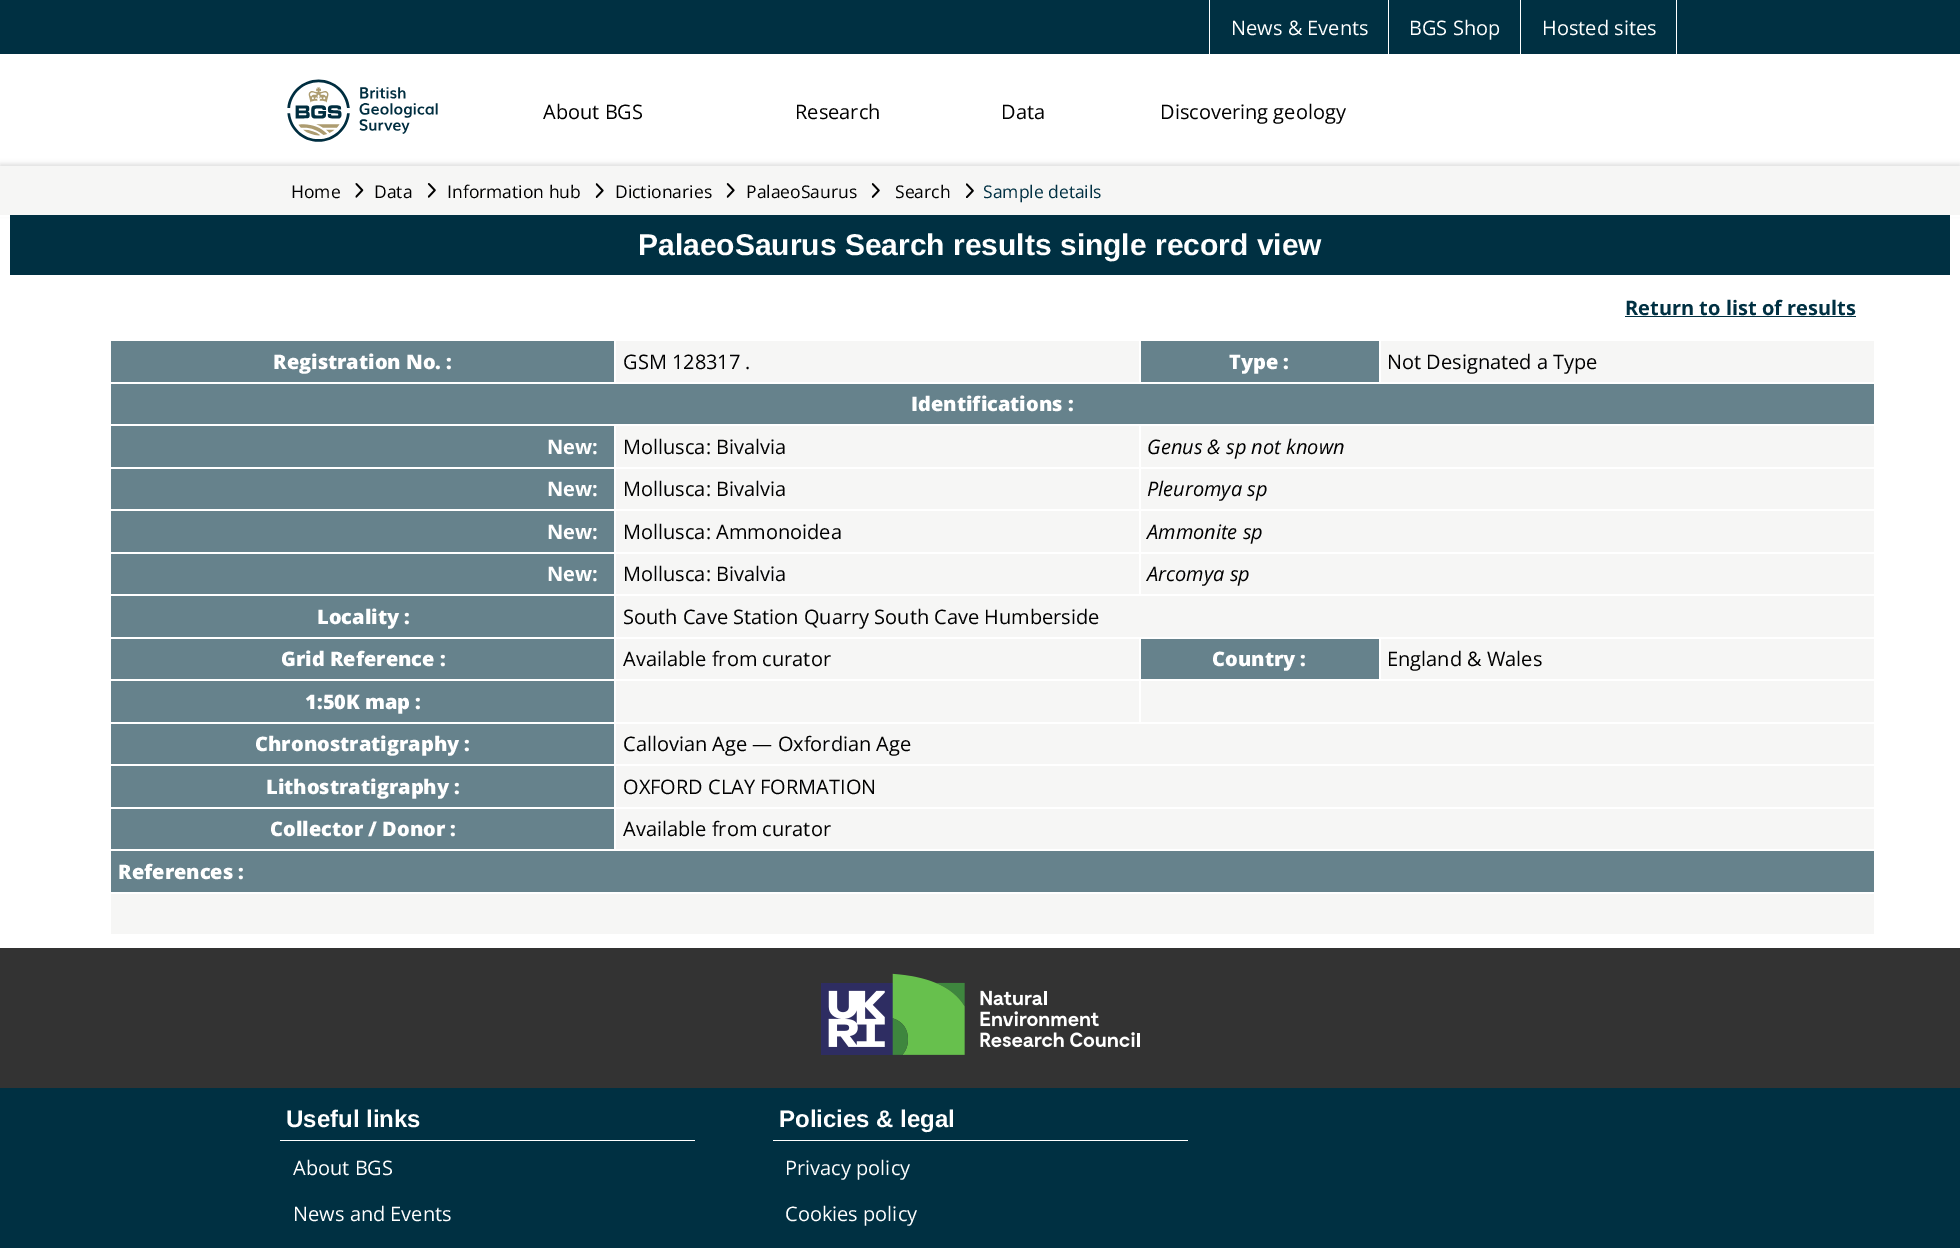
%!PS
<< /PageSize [1960 1248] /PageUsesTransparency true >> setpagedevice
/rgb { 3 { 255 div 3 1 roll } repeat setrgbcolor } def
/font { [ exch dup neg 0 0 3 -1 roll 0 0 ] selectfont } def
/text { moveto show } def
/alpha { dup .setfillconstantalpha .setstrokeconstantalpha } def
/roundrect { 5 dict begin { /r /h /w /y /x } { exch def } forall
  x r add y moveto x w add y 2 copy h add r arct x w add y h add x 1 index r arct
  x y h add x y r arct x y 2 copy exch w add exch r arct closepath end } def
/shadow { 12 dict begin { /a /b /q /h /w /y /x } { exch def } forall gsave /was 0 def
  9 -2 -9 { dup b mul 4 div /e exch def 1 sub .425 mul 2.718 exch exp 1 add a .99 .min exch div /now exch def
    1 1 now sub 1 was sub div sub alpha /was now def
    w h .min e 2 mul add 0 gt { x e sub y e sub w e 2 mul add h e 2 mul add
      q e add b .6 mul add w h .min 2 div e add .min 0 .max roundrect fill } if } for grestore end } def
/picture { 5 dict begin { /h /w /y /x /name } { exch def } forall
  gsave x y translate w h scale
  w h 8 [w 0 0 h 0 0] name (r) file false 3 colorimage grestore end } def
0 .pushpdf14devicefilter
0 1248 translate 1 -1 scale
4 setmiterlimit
255 255 255 rgb
0 0 1960 1248 rectfill
0 48 66 rgb
0 0 1960 54 rectfill
255 255 255 rgb
1388 0 1 54 rectfill
1209 0 1 54 rectfill
1520 0 1 54 rectfill
1676 0 1 54 rectfill
(img_01.rgb) 287 79 151 63 picture
183 183 183 rgb
0 164 1960 49 0 2.5 0.5 shadow
246 246 245 rgb
0 166 1960 49 rectfill
(img_02.rgb) 355 183 9 15 picture
(img_03.rgb) 427 183 9 15 picture
(img_04.rgb) 595 183 9 15 picture
(img_05.rgb) 726 183 9 15 picture
(img_06.rgb) 871 183 9 15 picture
(img_07.rgb) 966 183 8 15 picture
255 255 255 rgb
0 215 1960 2 rectfill
0 48 66 rgb
10 215 1940 60 rectfill
1625 316 231 1 rectfill
102 130 140 rgb
111 341 503 41 rectfill
246 246 245 rgb
616 341 523 41 rectfill
102 130 140 rgb
1141 341 238 41 rectfill
246 246 245 rgb
1381 341 493 41 rectfill
102 130 140 rgb
111 384 1763 40 rectfill
111 426 503 41 rectfill
246 246 245 rgb
616 426 523 41 rectfill
1141 426 733 41 rectfill
102 130 140 rgb
111 469 503 40 rectfill
246 246 245 rgb
616 469 523 40 rectfill
1141 469 733 40 rectfill
102 130 140 rgb
111 511 503 41 rectfill
246 246 245 rgb
616 511 523 41 rectfill
1141 511 733 41 rectfill
102 130 140 rgb
111 554 503 40 rectfill
246 246 245 rgb
616 554 523 40 rectfill
1141 554 733 40 rectfill
102 130 140 rgb
111 596 503 41 rectfill
246 246 245 rgb
616 596 1258 41 rectfill
102 130 140 rgb
111 639 503 40 rectfill
246 246 245 rgb
616 639 523 40 rectfill
102 130 140 rgb
1141 639 238 40 rectfill
246 246 245 rgb
1381 639 493 40 rectfill
102 130 140 rgb
111 681 503 41 rectfill
246 246 245 rgb
616 681 523 41 rectfill
1141 681 733 41 rectfill
102 130 140 rgb
111 724 503 40 rectfill
246 246 245 rgb
616 724 1258 40 rectfill
102 130 140 rgb
111 766 503 41 rectfill
246 246 245 rgb
616 766 1258 41 rectfill
102 130 140 rgb
111 809 503 40 rectfill
246 246 245 rgb
616 809 1258 40 rectfill
102 130 140 rgb
111 851 1763 41 rectfill
246 246 245 rgb
111 894 1763 40 rectfill
0 48 66 rgb
0 1088 1960 160 rectfill
51 51 51 rgb
0 948 1960 140 rectfill
(img_08.rgb) 821 973 319 82 picture
255 255 255 rgb
280 1140 415 1 rectfill
773 1140 415 1 rectfill
/OpenSans-Regular 20 font
(News & Events) 1231 35 text
(BGS Shop) 1409 35 text
(Hosted sites) 1542 35 text
0 0 0 rgb
(About BGS) 543 119 text
(Research) 795 119 text
(Data) 1001 119 text
(Discovering geology) 1160 119 text
/OpenSans-Regular 17.5 font
(Home) 291 198 text
(Data) 374 198 text
(Information hub) 447 198 text
(Dictionaries) 615 198 text
(PalaeoSaurus) 746 198 text
(Search) 895 198 text
0 48 66 rgb
(Sample details) 983 198 text
/LiberationSans-Bold 30 font
255 255 255 rgb
(PalaeoSaurus Search results single record view) 638 255 text
/OpenSans-Bold 20 font
0 48 66 rgb
(Return to list of results) 1625 315 text
/OpenSans-ExtraBold 20 font
255 255 255 rgb
(Registration No. :) 273 369 text
/OpenSans-Regular 20 font
0 0 0 rgb
(GSM 128317 .) 623 369 text
/OpenSans-ExtraBold 20 font
255 255 255 rgb
(Type :) 1229 369 text
/OpenSans-Regular 20 font
0 0 0 rgb
(Not Designated a Type) 1387 369 text
/OpenSans-ExtraBold 20 font
255 255 255 rgb
(Identifications :) 911 411 text
/OpenSans-Bold 20 font
(New:) 547 454 text
/OpenSans-Regular 20 font
0 0 0 rgb
(Mollusca: Bivalvia) 623 454 text
/OpenSans-Italic 20 font
(Genus & sp not known) 1147 454 text
/OpenSans-Bold 20 font
255 255 255 rgb
(New:) 547 496 text
/OpenSans-Regular 20 font
0 0 0 rgb
(Mollusca: Bivalvia) 623 496 text
/OpenSans-Italic 20 font
(Pleuromya sp) 1147 496 text
/OpenSans-Bold 20 font
255 255 255 rgb
(New:) 547 539 text
/OpenSans-Regular 20 font
0 0 0 rgb
(Mollusca: Ammonoidea) 623 539 text
/OpenSans-Italic 20 font
(Ammonite sp) 1147 539 text
/OpenSans-Bold 20 font
255 255 255 rgb
(New:) 547 581 text
/OpenSans-Regular 20 font
0 0 0 rgb
(Mollusca: Bivalvia) 623 581 text
/OpenSans-Italic 20 font
(Arcomya sp) 1147 581 text
/OpenSans-ExtraBold 20 font
255 255 255 rgb
(Locality :) 317 624 text
/OpenSans-Regular 20 font
0 0 0 rgb
(South Cave Station Quarry South Cave Humberside) 623 624 text
/OpenSans-ExtraBold 20 font
255 255 255 rgb
(Grid Reference :) 281 666 text
/OpenSans-Regular 20 font
0 0 0 rgb
(Available from curator) 623 666 text
/OpenSans-ExtraBold 20 font
255 255 255 rgb
(Country :) 1212 666 text
/OpenSans-Regular 20 font
0 0 0 rgb
(England & Wales) 1387 666 text
/OpenSans-ExtraBold 20 font
255 255 255 rgb
(1:50K map :) 305 709 text
(Chronostratigraphy :) 255 751 text
/OpenSans-Regular 20 font
0 0 0 rgb
(Callovian Age — Oxfordian Age) 623 751 text
/OpenSans-ExtraBold 20 font
255 255 255 rgb
(Lithostratigraphy :) 266 794 text
/OpenSans-Regular 20 font
0 0 0 rgb
(OXFORD CLAY FORMATION) 623 794 text
/OpenSans-ExtraBold 20 font
255 255 255 rgb
(Collector / Donor :) 270 836 text
/OpenSans-Regular 20 font
0 0 0 rgb
(Available from curator) 623 836 text
/OpenSans-ExtraBold 20 font
255 255 255 rgb
(References :) 118 879 text
/LiberationSans-Bold 24 font
(Useful links) 286 1127 text
/OpenSans-Regular 20 font
(About BGS) 293 1175 text
(News and Events) 293 1221 text
/LiberationSans-Bold 24 font
(Policies & legal) 779 1127 text
/OpenSans-Regular 20 font
(Privacy policy) 785 1175 text
(Cookies policy) 785 1221 text
.poppdf14devicefilter showpage
